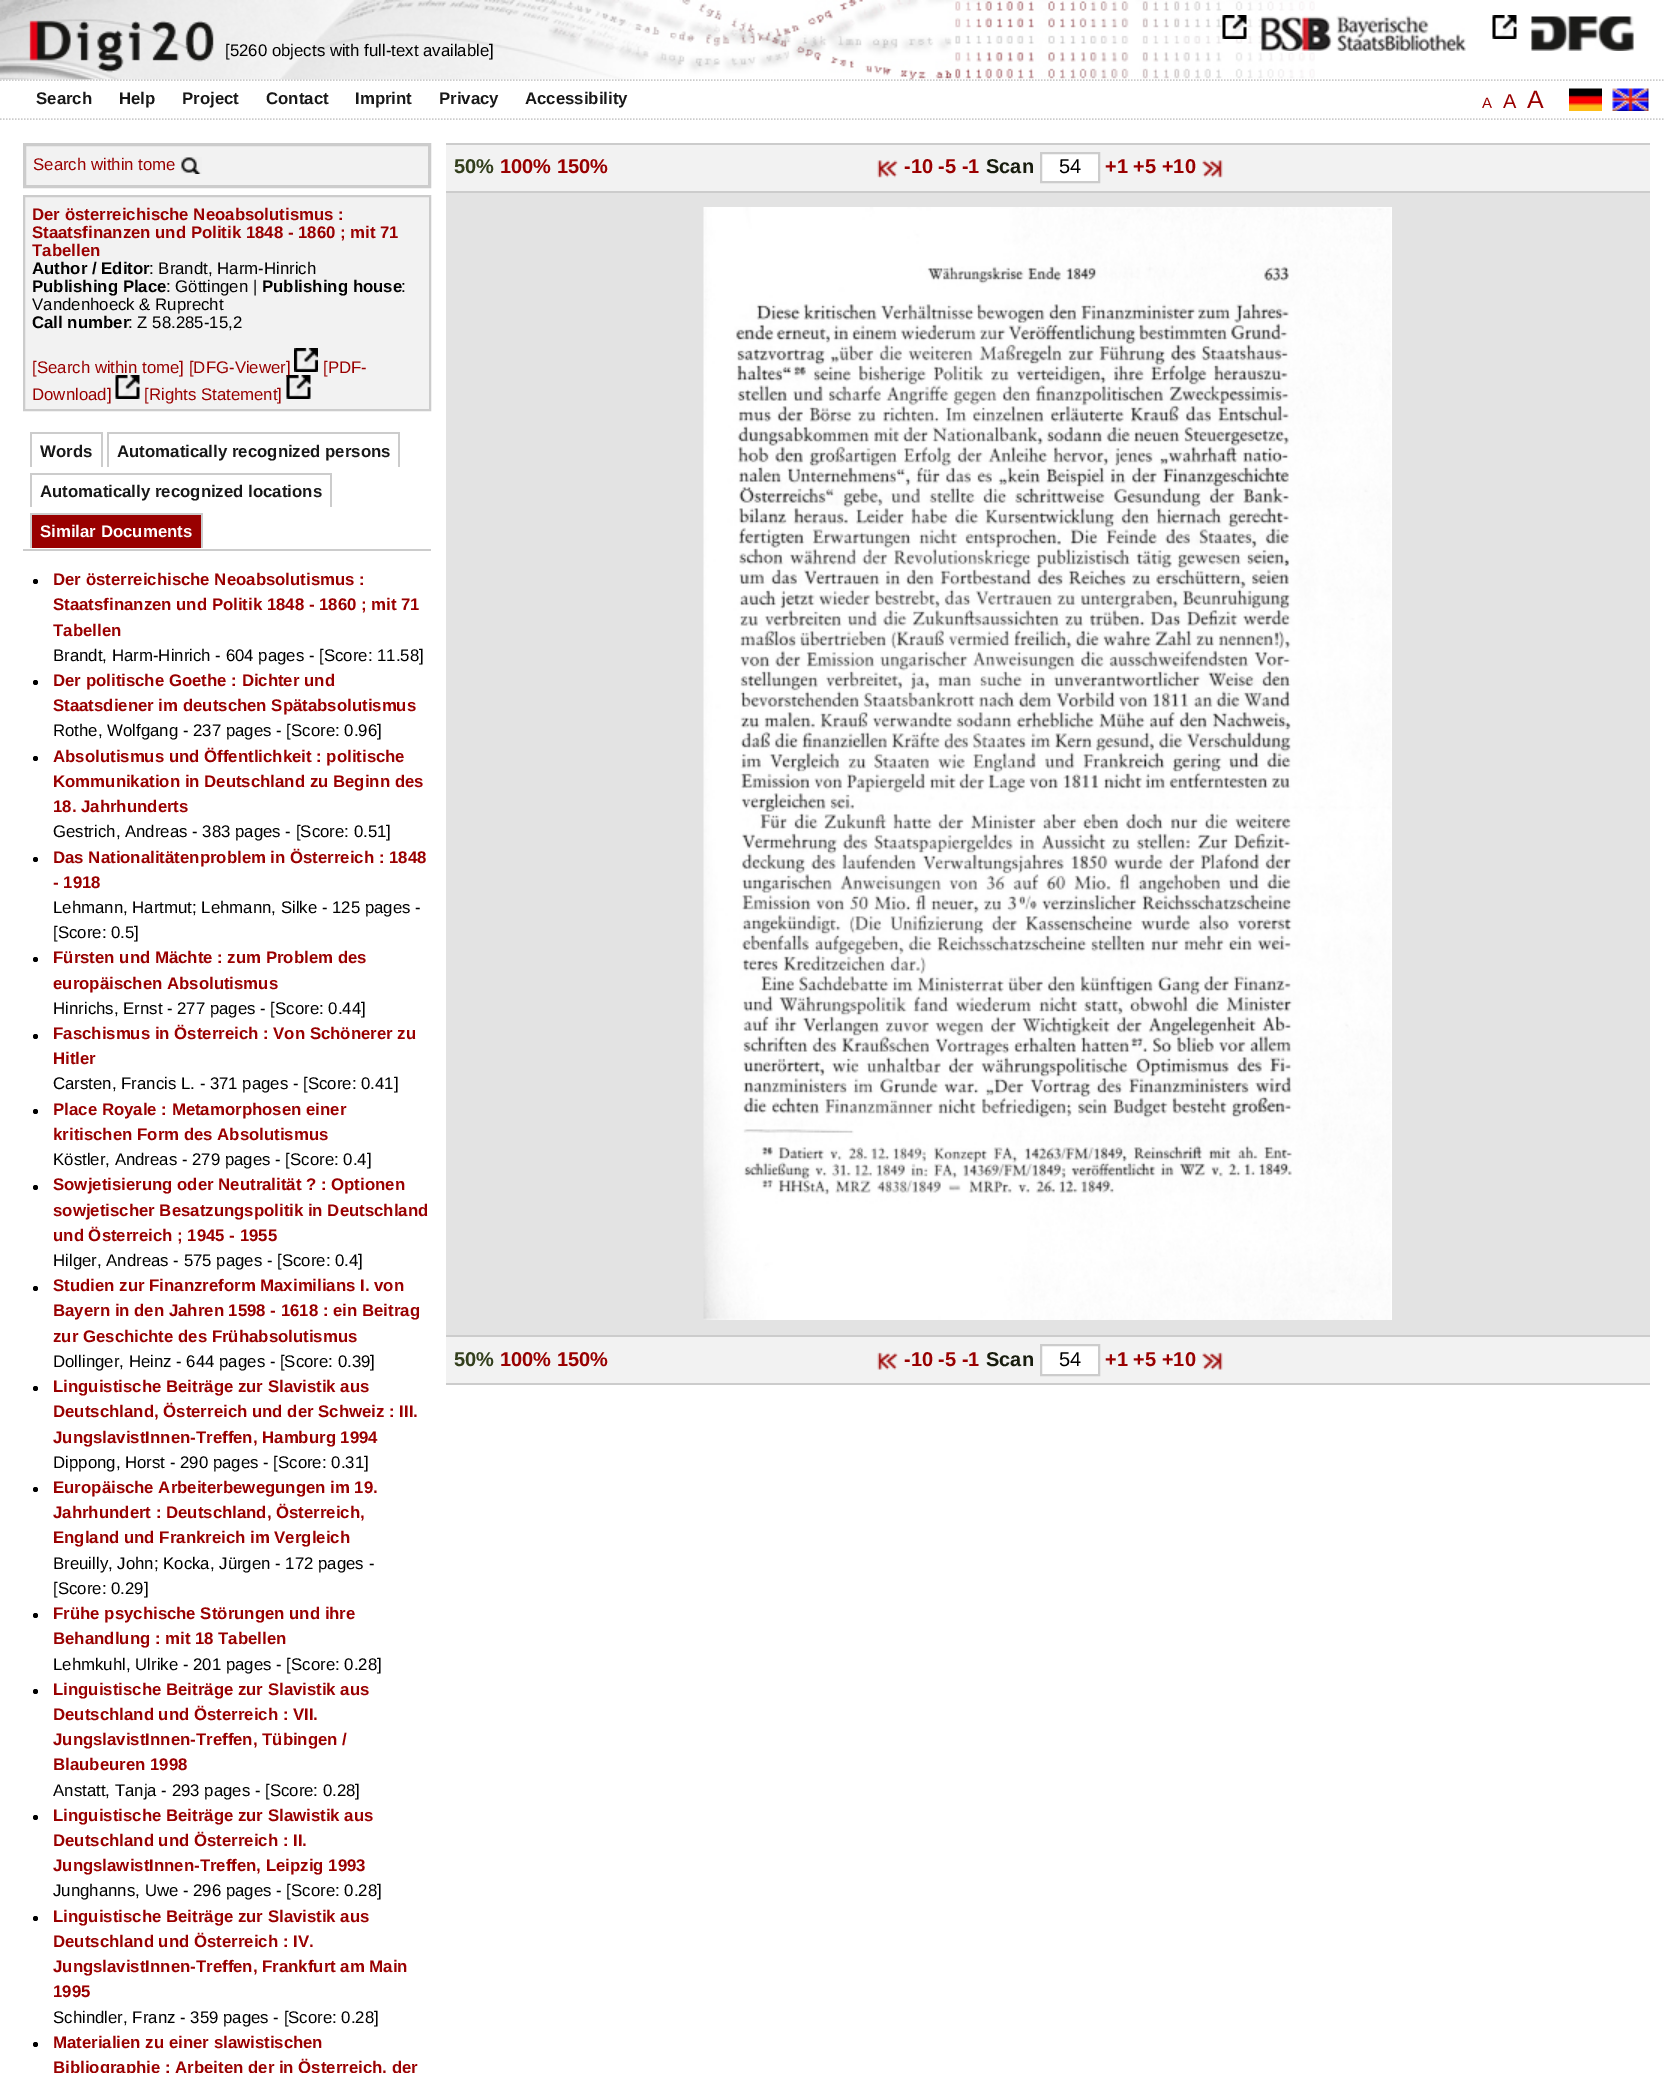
%!PS
<< /PageSize [1664 2073] >> setpagedevice
/rgb { 3 { 255 div 3 1 roll } repeat setrgbcolor } def
/font { [ exch dup neg 0 0 3 -1 roll 0 0 ] selectfont } def
/text { moveto show } def
/circle { newpath 0 360 arc closepath } def
/picture { 5 dict begin { /h /w /y /x /name } { exch def } forall
  gsave x y translate w h scale
  w h 8 [w 0 0 h 0 0] name (r) file false 3 colorimage grestore end } def
0 2073 translate 1 -1 scale
4 setmiterlimit
255 255 255 rgb
0 0 1664 2073 rectfill
(img_01.rgb) 0 0 1315 80 picture
(img_02.rgb) 1261 15 205 36 picture
(img_03.rgb) 1222 15 25 24 picture
(img_04.rgb) 1531 16 103 35 picture
(img_05.rgb) 1492 15 25 24 picture
204 204 204 rgb
1.5 setlinewidth
[1.5 1.5] 0 setdash
0 80 moveto 1663.5 0 rlineto stroke
0 119 moveto 1663.5 0 rlineto stroke
(img_06.rgb) 1569 88 33 23 picture
(img_07.rgb) 1612 88 37 23 picture
242 242 242 rgb
24.5 144.5 moveto 405 0 rlineto 0 42 rlineto -405 0 rlineto closepath gsave fill grestore
204 204 204 rgb
3 setlinewidth
[] 0 setdash
stroke
(img_08.rgb) 181 157 21 17 picture
242 242 242 rgb
24 196 moveto 406 0 rlineto 0 214 rlineto -406 0 rlineto closepath gsave fill grestore
204 204 204 rgb
2 setlinewidth
stroke
(img_09.rgb) 294 348 24 24 picture
23 549 408 2 rectfill
30 432 72 2 rectfill
101 432 2 35 rectfill
30 432 2 35 rectfill
107 432 292 2 rectfill
398 432 2 35 rectfill
107 432 2 35 rectfill
30 473 302 2 rectfill
330 473 2 34 rectfill
30 473 2 34 rectfill
153 0 0 rgb
32 515 169 33 rectfill
204 204 204 rgb
30 513 173 2 rectfill
201 513 2 35 rectfill
30 513 2 35 rectfill
0 0 0 rgb
35.5 581.5 2.5 circle fill
35.5 682.5 2.5 circle fill
35.5 758.5 2.5 circle fill
35.5 859.5 2.5 circle fill
35.5 959.5 2.5 circle fill
35.5 1036.5 2.5 circle fill
35.5 1111.5 2.5 circle fill
35.5 1187.5 2.5 circle fill
35.5 1288.5 2.5 circle fill
35.5 1388.5 2.5 circle fill
35.5 1489.5 2.5 circle fill
35.5 1615.5 2.5 circle fill
35.5 1691.5 2.5 circle fill
35.5 1817.5 2.5 circle fill
35.5 1918.5 2.5 circle fill
35.5 2044.5 2.5 circle fill
242 242 242 rgb
446 145 1204 46 rectfill
204 204 204 rgb
446 143 1204 2 rectfill
446 191 1204 2 rectfill
(img_12.rgb) 877 160 21 18 picture
255 255 255 rgb
1041 153 moveto 58 0 rlineto 0 29 rlineto -58 0 rlineto closepath gsave fill grestore
204 204 204 rgb
stroke
(img_13.rgb) 1202 160 21 18 picture
227 227 227 rgb
446 193 1204 1142 rectfill
(img_14.rgb) 703 207 689 1113 picture
242 242 242 rgb
446 1337 1204 46 rectfill
204 204 204 rgb
446 1335 1204 2 rectfill
446 1383 1204 2 rectfill
(img_15.rgb) 877 1352 21 18 picture
255 255 255 rgb
1041 1345 moveto 58 0 rlineto 0 30 rlineto -58 0 rlineto closepath gsave fill grestore
204 204 204 rgb
stroke
(img_16.rgb) 1202 1352 21 18 picture
/LiberationSans-Regular 16.8 font
0 0 0 rgb
([5260 objects with full-text available]) 225 56 text
/LiberationSans-Bold 16.8 font
24 24 24 rgb
(Search) 36 104 text
(Help) 119 104 text
(Project) 182 104 text
(Contact) 266 104 text
(Imprint) 355 104 text
(Privacy) 439 104 text
(Accessibility) 525 104 text
/LiberationSans-Regular 15 font
153 0 0 rgb
(A) 1482 108 text
/LiberationSans-Regular 20 font
(A) 1503 108 text
/LiberationSans-Regular 25 font
(A) 1527 108 text
/LiberationSans-Regular 16.8 font
(Search within tome) 33 170 text
/LiberationSans-Bold 16.8 font
(Der österreichische Neoabsolutismus :) 32 220 text
(Staatsfinanzen und Politik 1848 - 1860 ; mit 71) 32 238 text
(Tabellen) 32 256 text
0 0 0 rgb
(Author / Editor) 32 274 text
/LiberationSans-Regular 16.8 font
(: Brandt, Harm-Hinrich) 149 274 text
/LiberationSans-Bold 16.8 font
(Publishing Place) 32 292 text
/LiberationSans-Regular 16.8 font
(: Göttingen |) 166 292 text
/LiberationSans-Bold 16.8 font
(Publishing house) 262 292 text
/LiberationSans-Regular 16.8 font
(:) 401 292 text
(Vandenhoeck & Ruprecht) 32 310 text
/LiberationSans-Bold 16.8 font
(Call number) 32 328 text
/LiberationSans-Regular 16.8 font
(: Z 58.285-15,2) 128 328 text
153 0 0 rgb
([Search within tome] [DFG-Viewer]) 32 373 text
([PDF-) 323 373 text
(Download]) 32 400 text
(img_10.rgb) 115 375 25 24 picture
([Rights Statement]) 144 400 text
(img_11.rgb) 286 375 25 24 picture
/LiberationSans-Bold 16.8 font
24 24 24 rgb
(Words) 40 457 text
(Automatically recognized persons) 117 457 text
(Automatically recognized locations) 40 497 text
255 255 255 rgb
(Similar Documents) 40 537 text
153 0 0 rgb
(Der österreichische Neoabsolutismus :) 53 585 text
(Staatsfinanzen und Politik 1848 - 1860 ; mit 71) 53 610 text
(Tabellen) 53 636 text
/LiberationSans-Regular 16.8 font
0 0 0 rgb
(Brandt, Harm-Hinrich - 604 pages - [Score: 11.58]) 53 661 text
/LiberationSans-Bold 16.8 font
153 0 0 rgb
(Der politische Goethe : Dichter und) 53 686 text
(Staatsdiener im deutschen Spätabsolutismus) 53 711 text
/LiberationSans-Regular 16.8 font
0 0 0 rgb
(Rothe, Wolfgang - 237 pages - [Score: 0.96]) 53 736 text
/LiberationSans-Bold 16.8 font
153 0 0 rgb
(Absolutismus und Öffentlichkeit : politische) 53 762 text
(Kommunikation in Deutschland zu Beginn des) 53 787 text
(18. Jahrhunderts) 53 812 text
/LiberationSans-Regular 16.8 font
0 0 0 rgb
(Gestrich, Andreas - 383 pages - [Score: 0.51]) 53 837 text
/LiberationSans-Bold 16.8 font
153 0 0 rgb
(Das Nationalitätenproblem in Österreich : 1848) 53 863 text
(- 1918) 53 888 text
/LiberationSans-Regular 16.8 font
0 0 0 rgb
(Lehmann, Hartmut; Lehmann, Silke - 125 pages -) 53 913 text
([Score: 0.5]) 53 938 text
/LiberationSans-Bold 16.8 font
153 0 0 rgb
(Fürsten und Mächte : zum Problem des) 53 963 text
(europäischen Absolutismus) 53 989 text
/LiberationSans-Regular 16.8 font
0 0 0 rgb
(Hinrichs, Ernst - 277 pages - [Score: 0.44]) 53 1014 text
/LiberationSans-Bold 16.8 font
153 0 0 rgb
(Faschismus in Österreich : Von Schönerer zu) 53 1039 text
(Hitler) 53 1064 text
/LiberationSans-Regular 16.8 font
0 0 0 rgb
(Carsten, Francis L. - 371 pages - [Score: 0.41]) 53 1089 text
/LiberationSans-Bold 16.8 font
153 0 0 rgb
(Place Royale : Metamorphosen einer) 53 1115 text
(kritischen Form des Absolutismus) 53 1140 text
/LiberationSans-Regular 16.8 font
0 0 0 rgb
(Köstler, Andreas - 279 pages - [Score: 0.4]) 53 1165 text
/LiberationSans-Bold 16.8 font
153 0 0 rgb
(Sowjetisierung oder Neutralität ? : Optionen) 53 1190 text
(sowjetischer Besatzungspolitik in Deutschland) 53 1216 text
(und Österreich ; 1945 - 1955) 53 1241 text
/LiberationSans-Regular 16.8 font
0 0 0 rgb
(Hilger, Andreas - 575 pages - [Score: 0.4]) 53 1266 text
/LiberationSans-Bold 16.8 font
153 0 0 rgb
(Studien zur Finanzreform Maximilians I. von) 53 1291 text
(Bayern in den Jahren 1598 - 1618 : ein Beitrag) 53 1316 text
(zur Geschichte des Frühabsolutismus) 53 1342 text
/LiberationSans-Regular 16.8 font
0 0 0 rgb
(Dollinger, Heinz - 644 pages - [Score: 0.39]) 53 1367 text
/LiberationSans-Bold 16.8 font
153 0 0 rgb
(Linguistische Beiträge zur Slavistik aus) 53 1392 text
(Deutschland, Österreich und der Schweiz : III.) 53 1417 text
(JungslavistInnen-Treffen, Hamburg 1994) 53 1443 text
/LiberationSans-Regular 16.8 font
0 0 0 rgb
(Dippong, Horst - 290 pages - [Score: 0.31]) 53 1468 text
/LiberationSans-Bold 16.8 font
153 0 0 rgb
(Europäische Arbeiterbewegungen im 19.) 53 1493 text
(Jahrhundert : Deutschland, Österreich,) 53 1518 text
(England und Frankreich im Vergleich) 53 1543 text
/LiberationSans-Regular 16.8 font
0 0 0 rgb
(Breuilly, John; Kocka, Jürgen - 172 pages -) 53 1569 text
([Score: 0.29]) 53 1594 text
/LiberationSans-Bold 16.8 font
153 0 0 rgb
(Frühe psychische Störungen und ihre) 53 1619 text
(Behandlung : mit 18 Tabellen) 53 1644 text
/LiberationSans-Regular 16.8 font
0 0 0 rgb
(Lehmkuhl, Ulrike - 201 pages - [Score: 0.28]) 53 1670 text
/LiberationSans-Bold 16.8 font
153 0 0 rgb
(Linguistische Beiträge zur Slavistik aus) 53 1695 text
(Deutschland und Österreich : VII.) 53 1720 text
(JungslavistInnen-Treffen, Tübingen /) 53 1745 text
(Blaubeuren 1998) 53 1770 text
/LiberationSans-Regular 16.8 font
0 0 0 rgb
(Anstatt, Tanja - 293 pages - [Score: 0.28]) 53 1796 text
/LiberationSans-Bold 16.8 font
153 0 0 rgb
(Linguistische Beiträge zur Slawistik aus) 53 1821 text
(Deutschland und Österreich : II.) 53 1846 text
(JungslawistInnen-Treffen, Leipzig 1993) 53 1871 text
/LiberationSans-Regular 16.8 font
0 0 0 rgb
(Junghanns, Uwe - 296 pages - [Score: 0.28]) 53 1896 text
/LiberationSans-Bold 16.8 font
153 0 0 rgb
(Linguistische Beiträge zur Slavistik aus) 53 1922 text
(Deutschland und Österreich : IV.) 53 1947 text
(JungslavistInnen-Treffen, Frankfurt am Main) 53 1972 text
(1995) 53 1997 text
/LiberationSans-Regular 16.8 font
0 0 0 rgb
(Schindler, Franz - 359 pages - [Score: 0.28]) 53 2023 text
/LiberationSans-Bold 16.8 font
153 0 0 rgb
(Materialien zu einer slawistischen) 53 2048 text
(Bibliographie : Arbeiten der in Österreich, der) 53 2073 text
/LiberationSans-Bold 20 font
51 63 29 rgb
(50%) 454 173 text
153 0 0 rgb
(100% 150%) 500 173 text
(-10 -5 -1) 904 173 text
23 28 13 rgb
(Scan) 986 173 text
/LiberationSans-Regular 20 font
0 0 0 rgb
(54) 1059 173 text
/LiberationSans-Bold 20 font
153 0 0 rgb
(+1 +5 +10) 1105 173 text
51 63 29 rgb
(50%) 454 1366 text
153 0 0 rgb
(100% 150%) 500 1366 text
(-10 -5 -1) 904 1366 text
23 28 13 rgb
(Scan) 986 1366 text
/LiberationSans-Regular 20 font
0 0 0 rgb
(54) 1059 1366 text
/LiberationSans-Bold 20 font
153 0 0 rgb
(+1 +5 +10) 1105 1366 text
showpage
